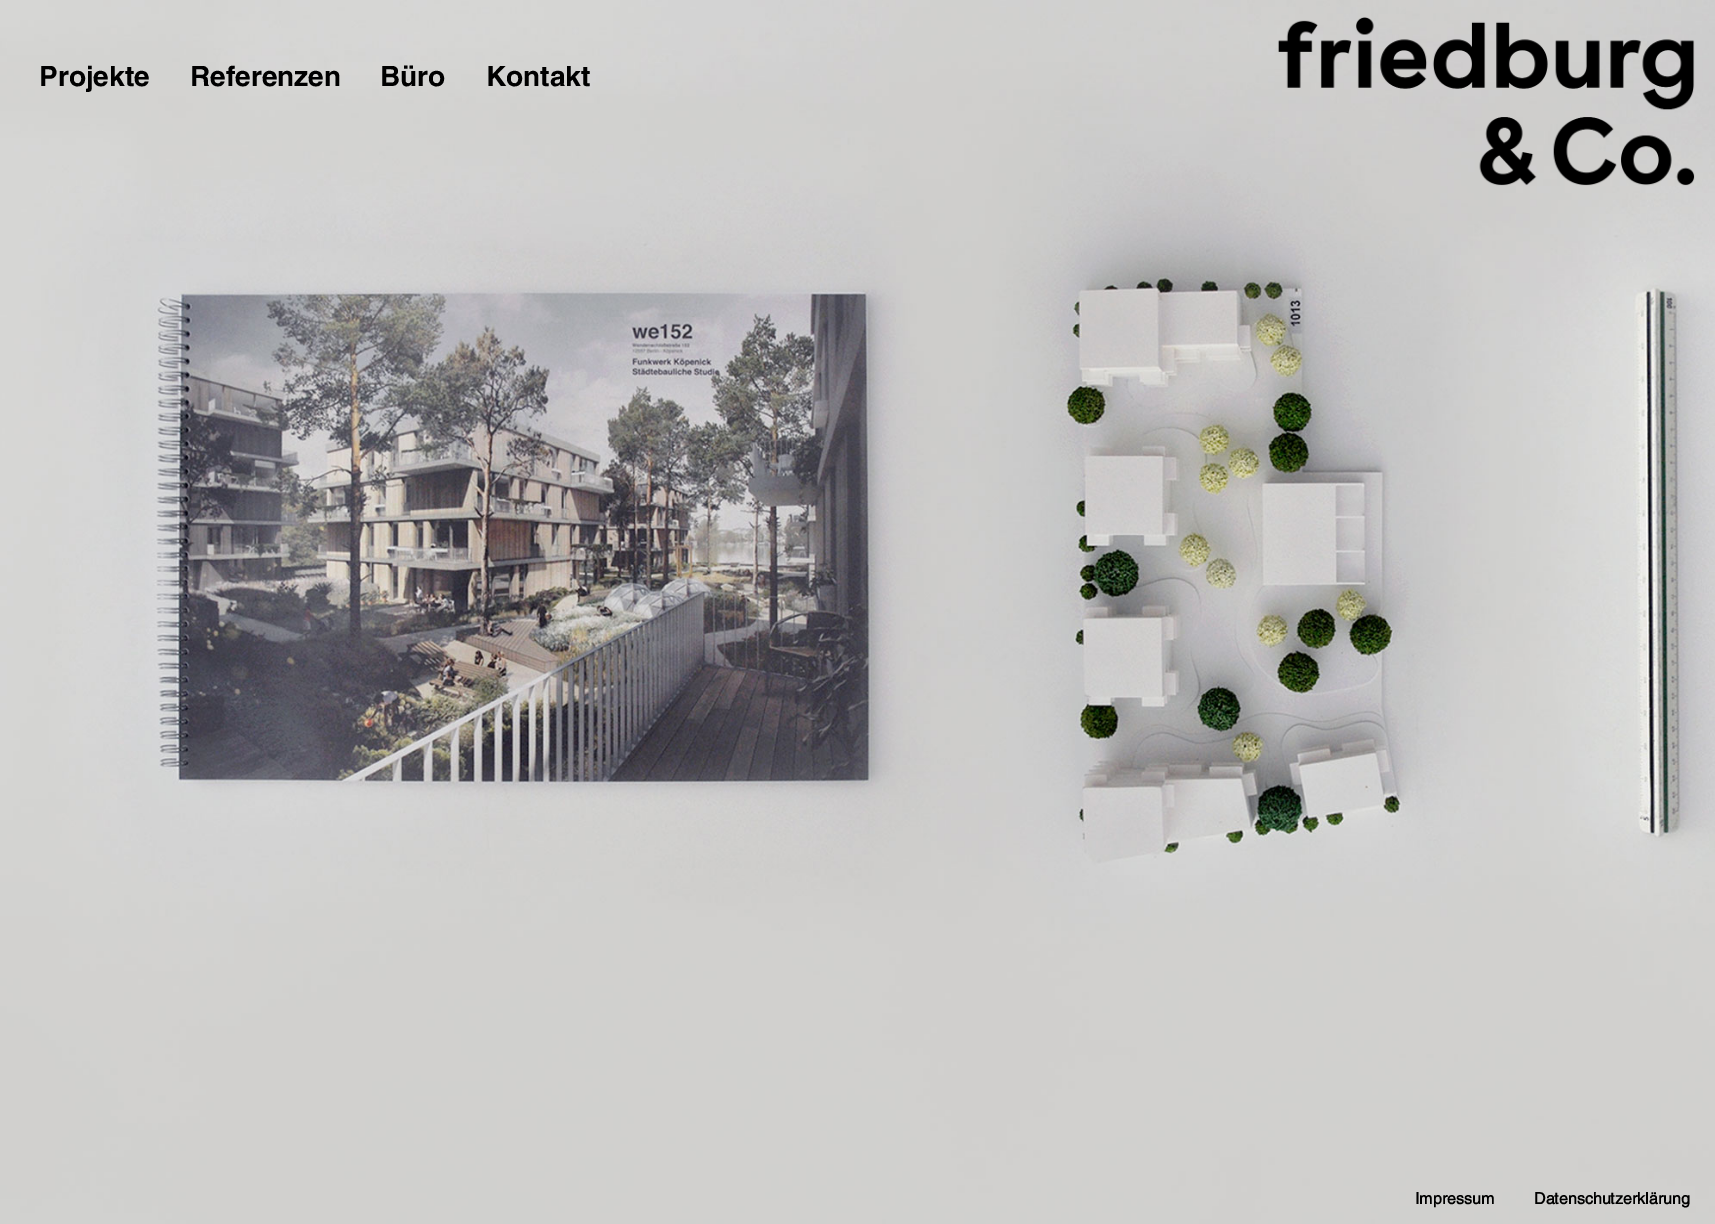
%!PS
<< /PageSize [1715 1224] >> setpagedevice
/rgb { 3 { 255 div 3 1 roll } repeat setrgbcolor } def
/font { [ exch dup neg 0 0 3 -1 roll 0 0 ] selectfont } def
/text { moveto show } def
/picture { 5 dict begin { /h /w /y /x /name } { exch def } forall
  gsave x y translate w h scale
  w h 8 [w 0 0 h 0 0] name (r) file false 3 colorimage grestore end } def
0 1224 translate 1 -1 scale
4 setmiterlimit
255 255 255 rgb
0 0 1715 1224 rectfill
(img_01.rgb) 0 0 1715 1224 picture
(img_02.rgb) 1278 17 417 169 picture
/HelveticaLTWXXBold-Regular 28 font
0 0 0 rgb
(Projekte) 39 86 text
(Referenzen) 190 86 text
(Büro) 380 86 text
(Kontakt) 486 86 text
/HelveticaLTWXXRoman-Bold 16 font
(Impressum) 1415 1204 text
(Datenschutzerklärung) 1534 1204 text
showpage
